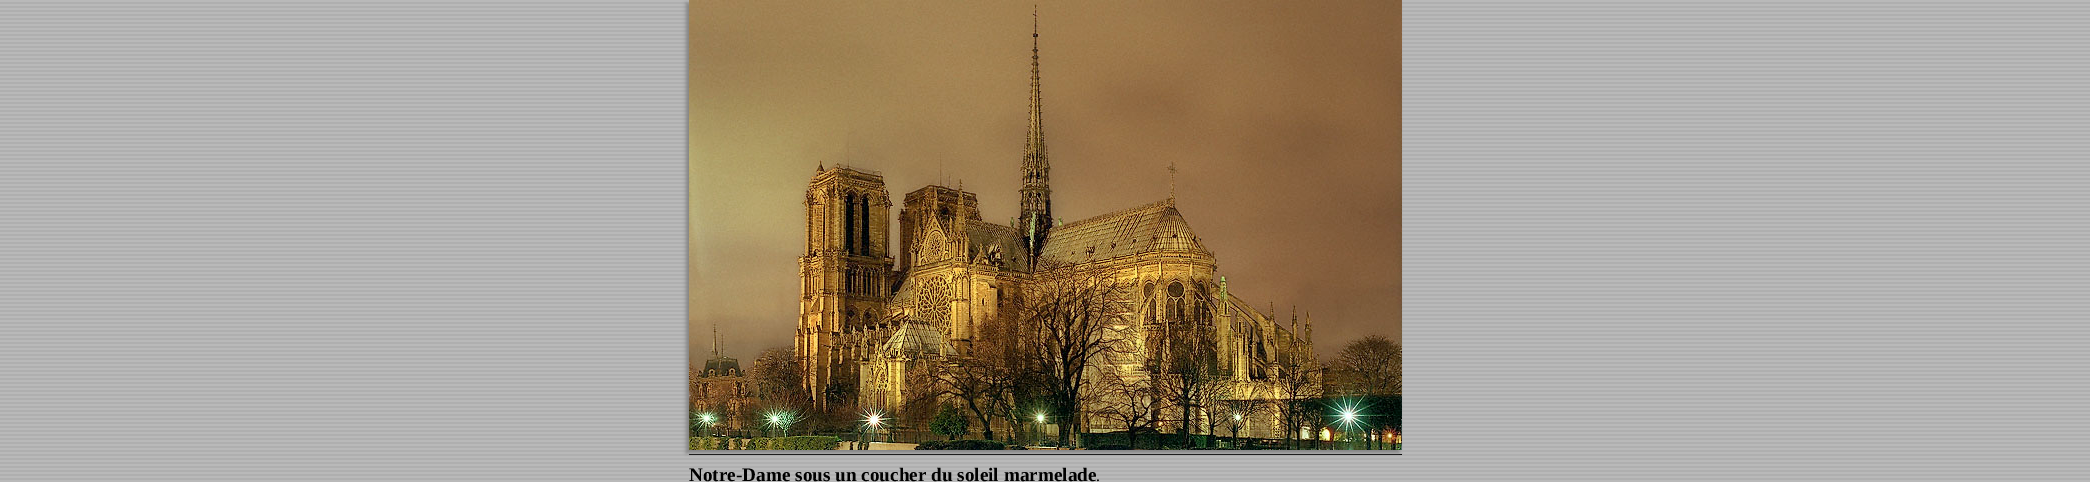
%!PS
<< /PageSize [2090 482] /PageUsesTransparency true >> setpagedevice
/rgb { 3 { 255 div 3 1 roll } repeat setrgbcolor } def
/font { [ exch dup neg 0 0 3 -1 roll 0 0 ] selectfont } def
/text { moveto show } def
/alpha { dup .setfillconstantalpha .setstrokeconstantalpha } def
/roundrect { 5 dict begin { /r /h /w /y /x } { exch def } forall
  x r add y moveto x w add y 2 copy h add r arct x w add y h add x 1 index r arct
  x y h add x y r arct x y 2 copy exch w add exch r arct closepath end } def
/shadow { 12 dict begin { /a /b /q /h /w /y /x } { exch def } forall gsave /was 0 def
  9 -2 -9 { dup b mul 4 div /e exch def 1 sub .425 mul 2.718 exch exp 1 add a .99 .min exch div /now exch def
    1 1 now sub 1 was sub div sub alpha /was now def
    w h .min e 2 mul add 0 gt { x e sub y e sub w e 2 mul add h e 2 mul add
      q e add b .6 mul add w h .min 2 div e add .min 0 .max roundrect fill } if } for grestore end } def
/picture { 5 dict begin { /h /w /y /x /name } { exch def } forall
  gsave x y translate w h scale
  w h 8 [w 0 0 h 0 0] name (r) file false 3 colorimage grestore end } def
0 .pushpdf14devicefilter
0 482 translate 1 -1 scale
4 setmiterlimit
255 255 255 rgb
0 0 2090 482 rectfill
(img_01.rgb) 0 0 2090 482 picture
0 0 0 rgb
689 454 713 1 rectfill
130 130 130 rgb
686 3 713 450 0 2 1 shadow
(img_02.rgb) 689 0 713 450 picture
/LiberationSerif-Bold 19.2 font
0 0 0 rgb
(Notre-Dame sous un coucher du soleil marmelade) 689 481 text
/LiberationSerif-Regular 16 font
(.) 1096 481 text
.poppdf14devicefilter showpage
